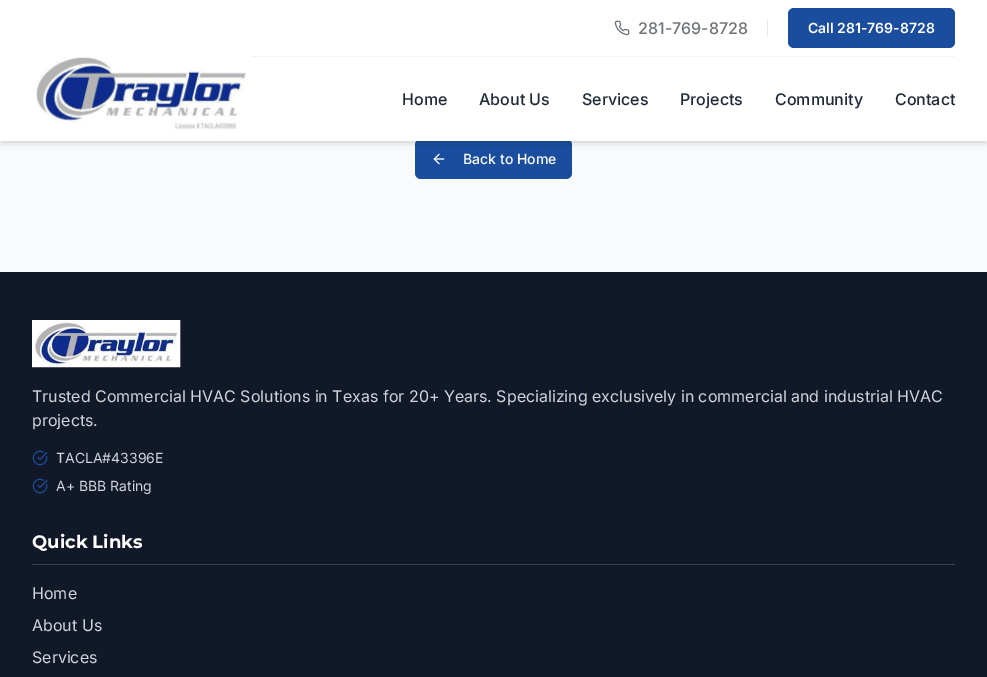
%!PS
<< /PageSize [987 677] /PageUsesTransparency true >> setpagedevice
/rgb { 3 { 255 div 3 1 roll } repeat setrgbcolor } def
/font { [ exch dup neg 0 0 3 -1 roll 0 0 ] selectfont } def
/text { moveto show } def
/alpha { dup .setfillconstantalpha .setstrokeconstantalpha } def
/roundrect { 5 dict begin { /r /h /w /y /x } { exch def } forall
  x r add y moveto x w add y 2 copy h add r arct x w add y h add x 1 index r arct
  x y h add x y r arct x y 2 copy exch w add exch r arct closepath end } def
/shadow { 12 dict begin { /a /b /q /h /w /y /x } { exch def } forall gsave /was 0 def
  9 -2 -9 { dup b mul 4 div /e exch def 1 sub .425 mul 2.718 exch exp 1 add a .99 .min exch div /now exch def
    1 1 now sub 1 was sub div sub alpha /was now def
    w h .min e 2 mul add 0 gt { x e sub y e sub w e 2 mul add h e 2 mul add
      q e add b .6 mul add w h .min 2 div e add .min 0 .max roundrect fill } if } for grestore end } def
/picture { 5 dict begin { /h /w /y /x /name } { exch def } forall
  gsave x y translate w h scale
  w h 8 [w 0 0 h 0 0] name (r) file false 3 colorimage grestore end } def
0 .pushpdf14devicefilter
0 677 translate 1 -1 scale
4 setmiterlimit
249 250 251 rgb
0 0 987 677 rectfill
26 77 158 rgb
415 139 157 40 6 roundrect fill
0 0 0 rgb
2 4 983 137 0 2 0.1 shadow
(img_03.rgb) 433 153 12 12 picture
1 5 985 139 0 3 0.1 shadow
255 255 255 rgb
0 0 987 141 rectfill
243 244 246 rgb
250 56 705 1 rectfill
(img_01.rgb) 614 20 16 16 picture
229 231 235 rgb
767 20 1 16 rectfill
26 77 158 rgb
788 8 167 40 6 roundrect fill
(img_02.rgb) 32 56 219 74 picture
17 24 39 rgb
0 272 987 405 rectfill
(img_04.rgb) 32 320 149 48 picture
(img_05.rgb) 32 450 16 16 picture
(img_05.rgb) 32 478 16 16 picture
55 65 81 rgb
32 564 923 1 rectfill
/Inter-Medium 16 font
109 114 118 rgb
(281-769-8728) 638 34 text
/Inter-SemiBold 14 font
255 255 255 rgb
(Call 281-769-8728) 808 33 text
/Inter-Medium 16 font
31 41 55 rgb
(Home) 402 105 text
(About Us) 479 105 text
(Services) 582 105 text
(Projects) 680 105 text
(Community) 775 105 text
(Contact) 895 105 text
/Inter-Medium 14 font
255 255 255 rgb
(Back to Home) 463 164 text
/Inter-Regular 16 font
209 213 219 rgb
(Trusted Commercial HVAC Solutions in Texas for 20+ Years. Specializing exclusively in commercial and industrial HVAC) 32 402 text
(projects.) 32 426 text
/Inter-Regular 14 font
(TACLA#43396E) 56 463 text
(A+ BBB Rating) 56 491 text
/Montserrat-Bold 18 font
255 255 255 rgb
(Quick Links) 32 548 text
/Inter-Regular 16 font
209 213 219 rgb
(Home) 32 599 text
(About Us) 32 631 text
(Services) 32 663 text
.poppdf14devicefilter showpage
